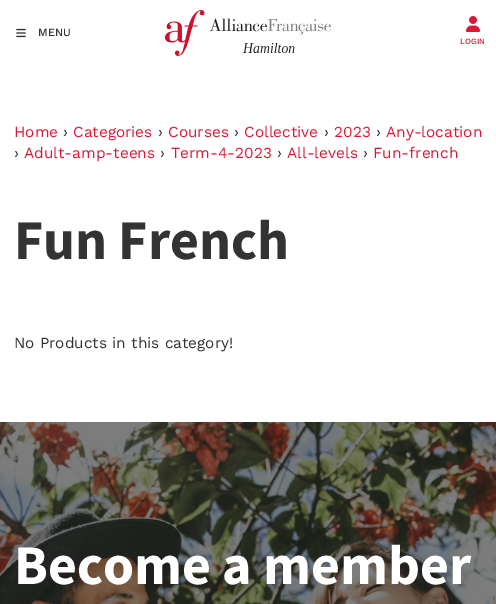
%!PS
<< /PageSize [496 604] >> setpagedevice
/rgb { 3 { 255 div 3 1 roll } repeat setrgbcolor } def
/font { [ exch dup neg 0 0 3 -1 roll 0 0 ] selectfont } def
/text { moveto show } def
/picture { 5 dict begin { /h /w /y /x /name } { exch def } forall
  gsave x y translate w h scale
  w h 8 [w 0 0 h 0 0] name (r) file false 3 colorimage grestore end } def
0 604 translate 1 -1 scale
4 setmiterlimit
255 255 255 rgb
0 0 496 604 rectfill
(img_01.rgb) 16 28 10 10 picture
(img_02.rgb) 165 10 166 46 picture
(img_03.rgb) 466 16 14 16 picture
(img_04.rgb) 0 422 496 182 picture
/WorkSans-Medium 11 font
51 51 51 rgb
(MENU) 38 36 text
/WorkSans-Medium 8 font
220 24 54 rgb
(LOGIN) 460 44 text
/WorkSans-Regular 15.4 font
(Home) 14 137 text
51 51 51 rgb
(›) 63 137 text
220 24 54 rgb
(Categories) 73 137 text
51 51 51 rgb
(›) 158 137 text
220 24 54 rgb
(Courses) 168 137 text
51 51 51 rgb
(›) 234 137 text
220 24 54 rgb
(Collective) 244 137 text
51 51 51 rgb
(›) 324 137 text
220 24 54 rgb
(2023) 334 137 text
51 51 51 rgb
(›) 376 137 text
220 24 54 rgb
(Any-location) 386 137 text
51 51 51 rgb
(›) 14 158 text
220 24 54 rgb
(Adult-amp-teens) 24 158 text
51 51 51 rgb
(›) 160 158 text
220 24 54 rgb
(Term-4-2023) 171 158 text
51 51 51 rgb
(›) 277 158 text
220 24 54 rgb
(All-levels) 287 158 text
51 51 51 rgb
(›) 363 158 text
220 24 54 rgb
(Fun-french) 373 158 text
/Mada-Bold 56 font
51 51 51 rgb
(Fun French) 14 259 text
/WorkSans-Regular 15.4 font
(No Products in this category!) 14 348 text
/Mada-Bold 56 font
255 255 255 rgb
(Become a member) 14 584 text
showpage
